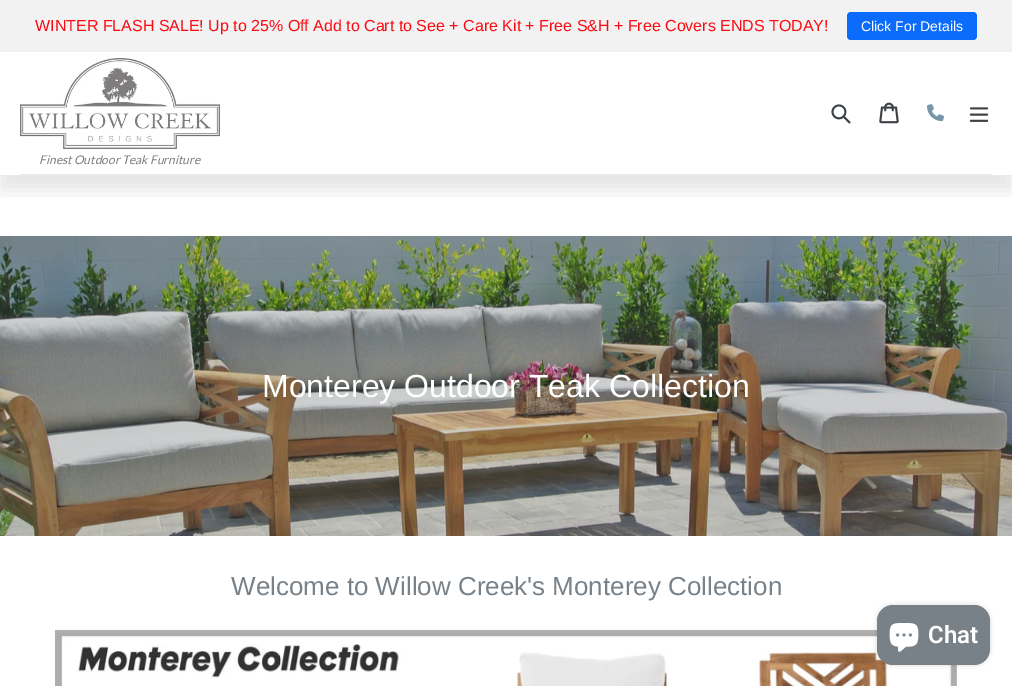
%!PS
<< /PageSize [1012 686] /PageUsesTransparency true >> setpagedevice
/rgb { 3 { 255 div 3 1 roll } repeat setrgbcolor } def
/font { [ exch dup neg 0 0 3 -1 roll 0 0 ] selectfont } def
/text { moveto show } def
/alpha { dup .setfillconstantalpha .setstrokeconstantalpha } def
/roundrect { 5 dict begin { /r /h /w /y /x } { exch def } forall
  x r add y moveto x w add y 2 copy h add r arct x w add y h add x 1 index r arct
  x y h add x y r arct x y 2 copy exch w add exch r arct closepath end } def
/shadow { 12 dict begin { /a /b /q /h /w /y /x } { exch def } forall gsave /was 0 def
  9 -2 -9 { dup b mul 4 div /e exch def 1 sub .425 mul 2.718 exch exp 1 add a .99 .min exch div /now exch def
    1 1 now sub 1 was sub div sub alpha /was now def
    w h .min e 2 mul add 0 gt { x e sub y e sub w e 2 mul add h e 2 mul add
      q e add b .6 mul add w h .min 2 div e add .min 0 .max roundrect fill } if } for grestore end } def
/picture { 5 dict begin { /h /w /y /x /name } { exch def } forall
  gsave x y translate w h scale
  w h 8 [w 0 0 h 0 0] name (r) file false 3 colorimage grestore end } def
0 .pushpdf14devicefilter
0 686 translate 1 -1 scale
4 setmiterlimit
255 255 255 rgb
0 0 1012 686 rectfill
gsave
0 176 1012 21 rectclip
0 0 0 rgb
0 65 1012 125 0 8.5 0.1 shadow
grestore
242 242 242 rgb
0 0 1012 52 rectfill
11 107 250 rgb
847 12 130 28 4 roundrect fill
232 233 235 rgb
0 175 1012 1 rectfill
(img_01.rgb) 831 104 20 20 picture
(img_02.rgb) 879 102 20 22 picture
(img_03.rgb) 927 104 17 18 picture
(img_04.rgb) 969 107 20 15 picture
(img_05.rgb) 20 58 200 91 picture
20 174 972 1 rectfill
(img_06.rgb) 0 236 1012 300 picture
(img_07.rgb) 55 629 902 57 picture
0 0 0 rgb
877 605 113 60 16 2.5 0.15 shadow
120 129 136 rgb
877 605 113 60 16 roundrect fill
(img_08.rgb) 889 623 30 29 picture
/LiberationSans-Regular 16 font
250 11 18 rgb
(WINTER FLASH SALE! Up to 25% Off Add to Cart to See + Care Kit + Free S&H + Free Covers ENDS TODAY!) 35 31 text
/LiberationSans-Regular 14 font
255 255 255 rgb
(Click For Details) 861 31 text
/Lato-Italic 12 font
126 126 126 rgb
(Finest Outdoor Teak Furniture) 39 164 text
/LiberationSans-Regular 32 font
255 255 255 rgb
(Monterey Outdoor Teak Collection) 262 397 text
/LiberationSans-Regular 26 font
120 129 136 rgb
(Welcome to Willow Creek's Monterey Collection) 231 595 text
/Roboto-SemiBold 24 font
255 255 255 rgb
(Chat) 928 643 text
.poppdf14devicefilter showpage
